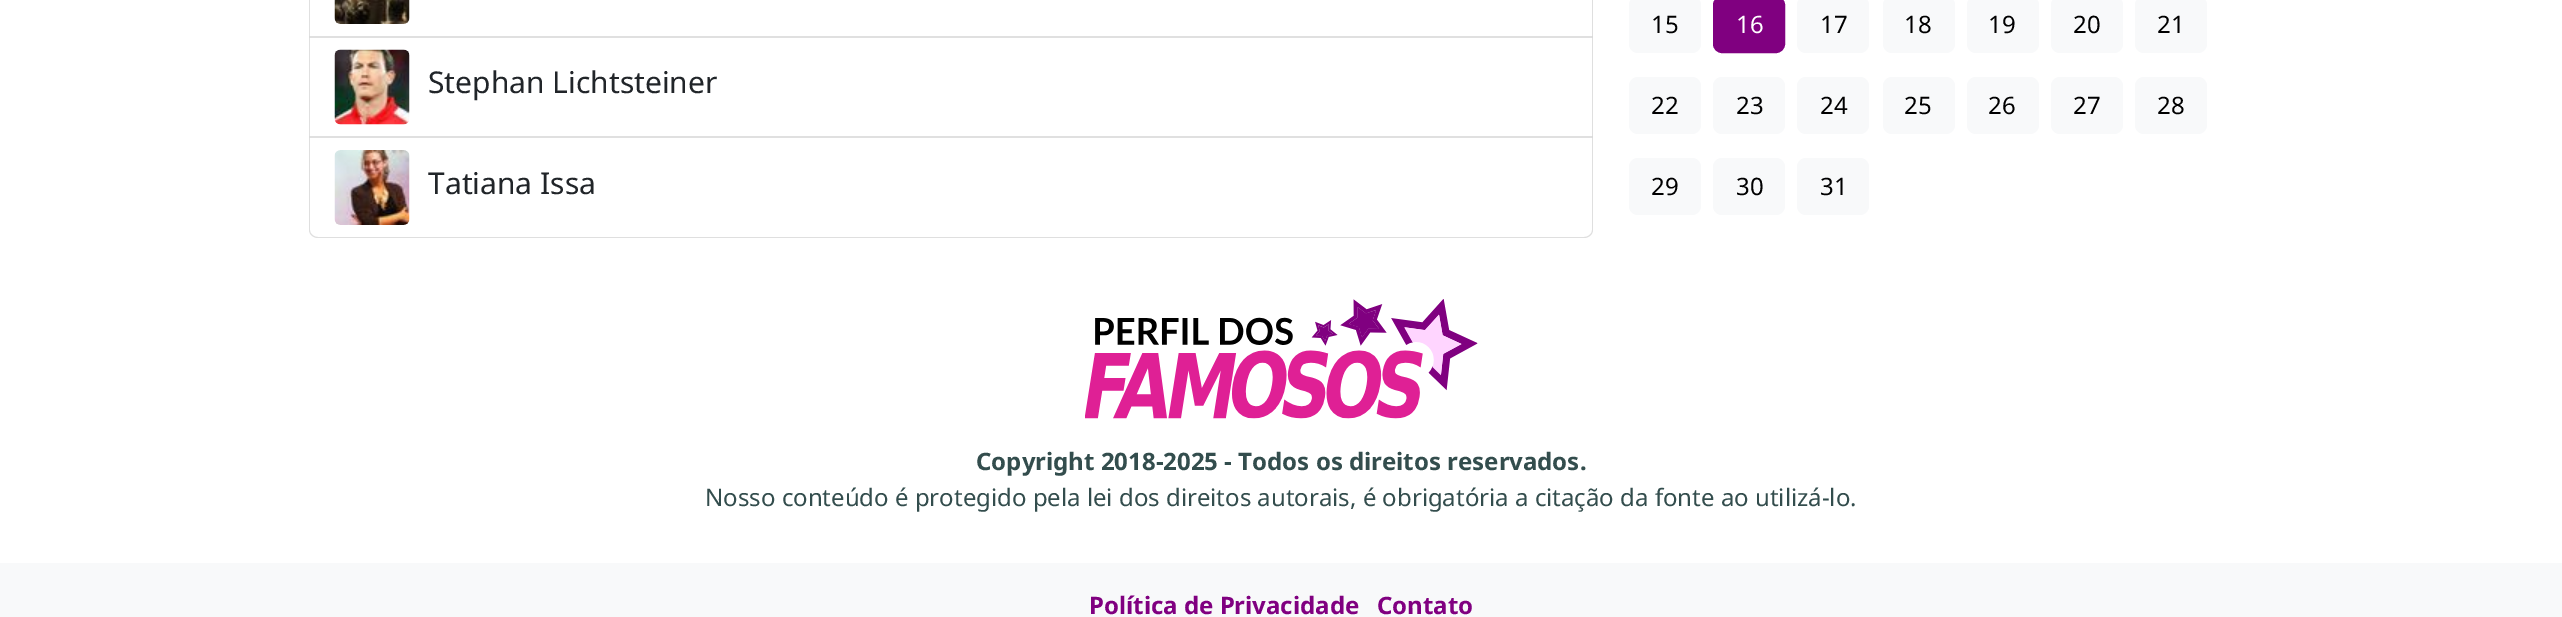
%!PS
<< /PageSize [2562 617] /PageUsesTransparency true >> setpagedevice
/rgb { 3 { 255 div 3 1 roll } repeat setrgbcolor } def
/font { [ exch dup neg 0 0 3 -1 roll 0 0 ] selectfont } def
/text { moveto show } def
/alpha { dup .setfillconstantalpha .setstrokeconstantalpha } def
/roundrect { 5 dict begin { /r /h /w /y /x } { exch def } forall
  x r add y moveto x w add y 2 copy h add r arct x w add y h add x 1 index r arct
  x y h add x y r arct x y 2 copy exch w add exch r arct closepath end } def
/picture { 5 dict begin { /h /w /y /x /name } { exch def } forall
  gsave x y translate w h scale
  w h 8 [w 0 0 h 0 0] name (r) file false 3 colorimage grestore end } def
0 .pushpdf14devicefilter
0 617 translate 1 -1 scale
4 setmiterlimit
255 255 255 rgb
0 0 2562 617 rectfill
223 223 223 rgb
1593 -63 moveto 0 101 rlineto -1 -2 rlineto 0 -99 rlineto closepath fill
0.12 alpha
0 0 0 rgb
1593 38 moveto -1284 0 rlineto 1 -2 rlineto 1282 0 rlineto closepath fill
309 38 moveto 0 -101 rlineto 1 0 rlineto 0 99 rlineto closepath fill
1 alpha
(img_01.rgb) 334 0 76 24 picture
223 223 223 rgb
1593 38 moveto 0 100 rlineto -1 -2 rlineto 0 -98 rlineto closepath fill
0.12 alpha
0 0 0 rgb
1593 138 moveto -1284 0 rlineto 1 -2 rlineto 1282 0 rlineto closepath fill
309 138 moveto 0 -100 rlineto 1 0 rlineto 0 98 rlineto closepath fill
1 alpha
(img_02.rgb) 334 49 76 76 picture
223 223 223 rgb
309 138 moveto 1284 0 rlineto 0 92 rlineto 0 4 -4 8 -9 8 rcurveto -1266 0 rlineto -5 0 -9 -4 -9 -8 rcurveto closepath 310 138 moveto 1282 0 rlineto 0 92 rlineto 0 4 -4 7 -8 7 rcurveto -1266 0 rlineto -4 0 -8 -3 -8 -7 rcurveto closepath eofill
(img_03.rgb) 334 150 76 75 picture
248 249 250 rgb
1629 -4 72 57 9 roundrect fill
128 0 128 rgb
1714 -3 70 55 8 roundrect gsave fill grestore
2 setlinewidth
stroke
248 249 250 rgb
1797 -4 72 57 9 roundrect fill
1883 -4 72 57 9 roundrect fill
1967 -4 72 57 9 roundrect fill
2051 -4 72 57 9 roundrect fill
2135 -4 72 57 9 roundrect fill
1629 77 72 57 9 roundrect fill
1713 77 72 57 9 roundrect fill
1797 77 72 57 9 roundrect fill
1883 77 72 57 9 roundrect fill
1967 77 72 57 9 roundrect fill
2051 77 72 57 9 roundrect fill
2135 77 72 57 9 roundrect fill
1629 158 72 57 9 roundrect fill
1713 158 72 57 9 roundrect fill
1797 158 72 57 9 roundrect fill
(img_04.rgb) 1085 299 393 120 picture
0 563 2562 54 rectfill
/NotoSans-Regular 30 font
33 37 41 rgb
(Stephan Lichtsteiner) 428 93 text
(Tatiana Issa) 428 194 text
/NotoSans-Regular 24 font
0 0 0 rgb
(15) 1651 33 text
255 255 255 rgb
(16) 1736 33 text
0 0 0 rgb
(17) 1820 33 text
(18) 1904 33 text
(19) 1988 33 text
(20) 2073 33 text
(21) 2157 33 text
(22) 1651 114 text
(23) 1736 114 text
(24) 1820 114 text
(25) 1904 114 text
(26) 1988 114 text
(27) 2073 114 text
(28) 2157 114 text
(29) 1651 195 text
(30) 1736 195 text
(31) 1820 195 text
/NotoSans-Bold 24 font
51 77 77 rgb
(Copyright 2018-2025 - Todos os direitos reservados.) 976 470 text
/NotoSans-Regular 24 font
(Nosso conteúdo é protegido pela lei dos direitos autorais, é obrigatória a citação da fonte ao utilizá-lo.) 705 506 text
/NotoSans-Bold 24 font
128 0 128 rgb
(Política de Privacidade) 1089 614 text
(Contato) 1377 614 text
.poppdf14devicefilter showpage
